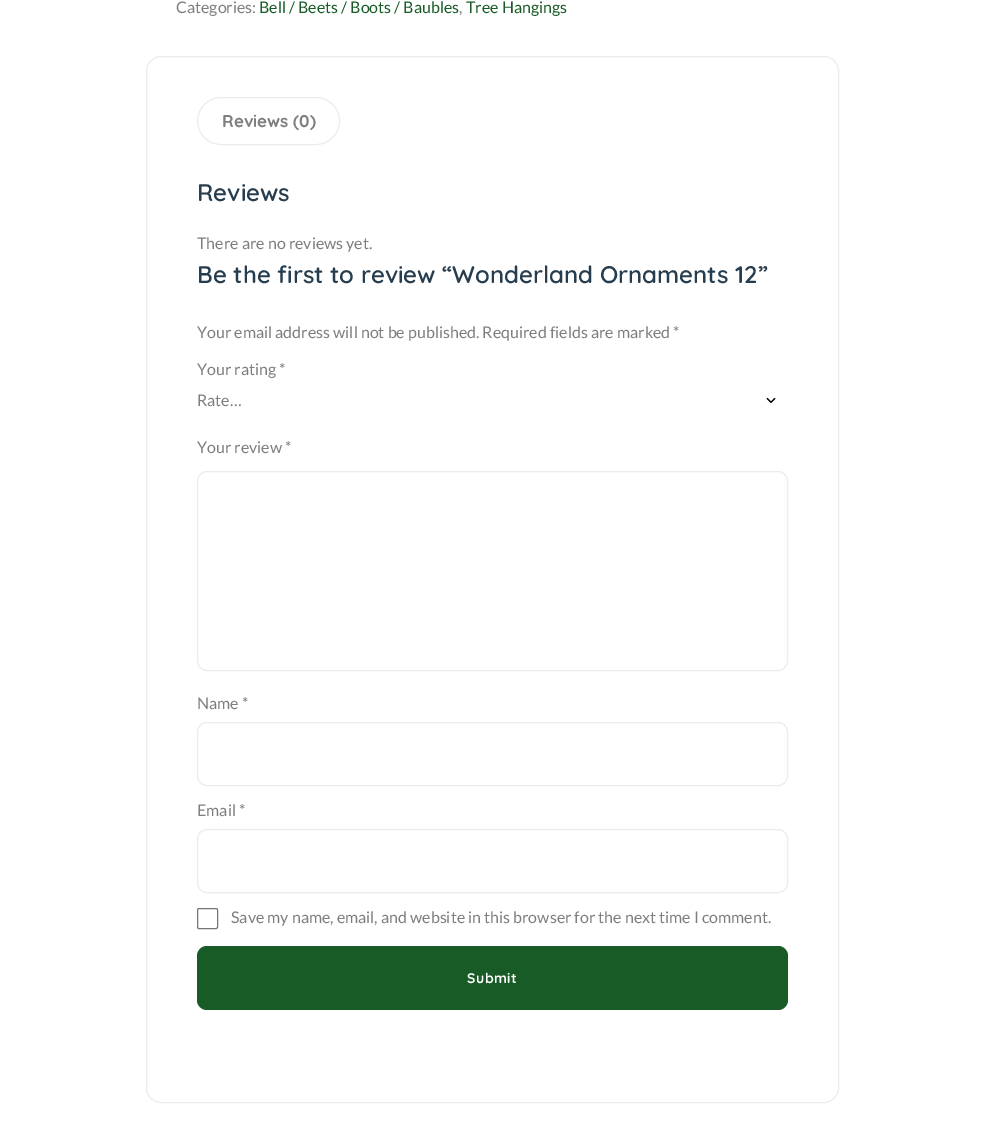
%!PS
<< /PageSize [981 1147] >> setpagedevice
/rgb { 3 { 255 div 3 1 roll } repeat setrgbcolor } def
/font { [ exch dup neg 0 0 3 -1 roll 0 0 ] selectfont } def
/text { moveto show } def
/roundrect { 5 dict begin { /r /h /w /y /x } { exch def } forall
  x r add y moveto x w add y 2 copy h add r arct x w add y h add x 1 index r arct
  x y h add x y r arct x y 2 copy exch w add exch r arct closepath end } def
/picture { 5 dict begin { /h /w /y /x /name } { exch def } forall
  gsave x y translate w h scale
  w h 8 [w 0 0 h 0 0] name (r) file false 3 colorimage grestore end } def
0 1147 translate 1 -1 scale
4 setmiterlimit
255 255 255 rgb
0 0 981 1147 rectfill
236 236 236 rgb
146.5 56.5 692 1046 14.5 roundrect stroke
197.5 97.5 142 47 23.5 roundrect stroke
(img_01.rgb) 766 397 10 6 picture
197.5 471.5 590 199 9.5 roundrect stroke
197.5 722.5 590 63 9.5 roundrect stroke
197.5 829.5 590 63 9.5 roundrect stroke
118 118 118 rgb
197.5 908.5 20 20 1.5 roundrect stroke
24 91 39 rgb
197 946 591 64 10 roundrect fill
/Lato-Regular 16 font
126 126 126 rgb
(Categories:) 176 13 text
24 91 39 rgb
(Bell / Beets / Boots / Baubles) 259 13 text
126 126 126 rgb
(,) 459 13 text
24 91 39 rgb
(Tree Hangings) 466 13 text
/Quicksand-Bold 17 font
126 126 126 rgb
(Reviews \(0\)) 222 127 text
/Quicksand-SemiBold 24 font
37 61 78 rgb
(Reviews) 197 201 text
/Lato-Regular 16 font
126 126 126 rgb
(There are no reviews yet.) 197 249 text
/Quicksand-SemiBold 24 font
37 61 78 rgb
(Be the first to review “Wonderland Ornaments 12”) 197 283 text
/Lato-Regular 16 font
126 126 126 rgb
(Your email address will not be published. Required fields are marked *) 197 338 text
(Your rating *) 197 375 text
(Rate…) 197 406 text
(Your review *) 197 453 text
(Name *) 197 709 text
(Email *) 197 816 text
(Save my name, email, and website in this browser for the next time I comment.) 231 923 text
/Quicksand-Bold 14 font
255 255 255 rgb
467 983 moveto 0.5 0 (Submit) ashow
showpage
